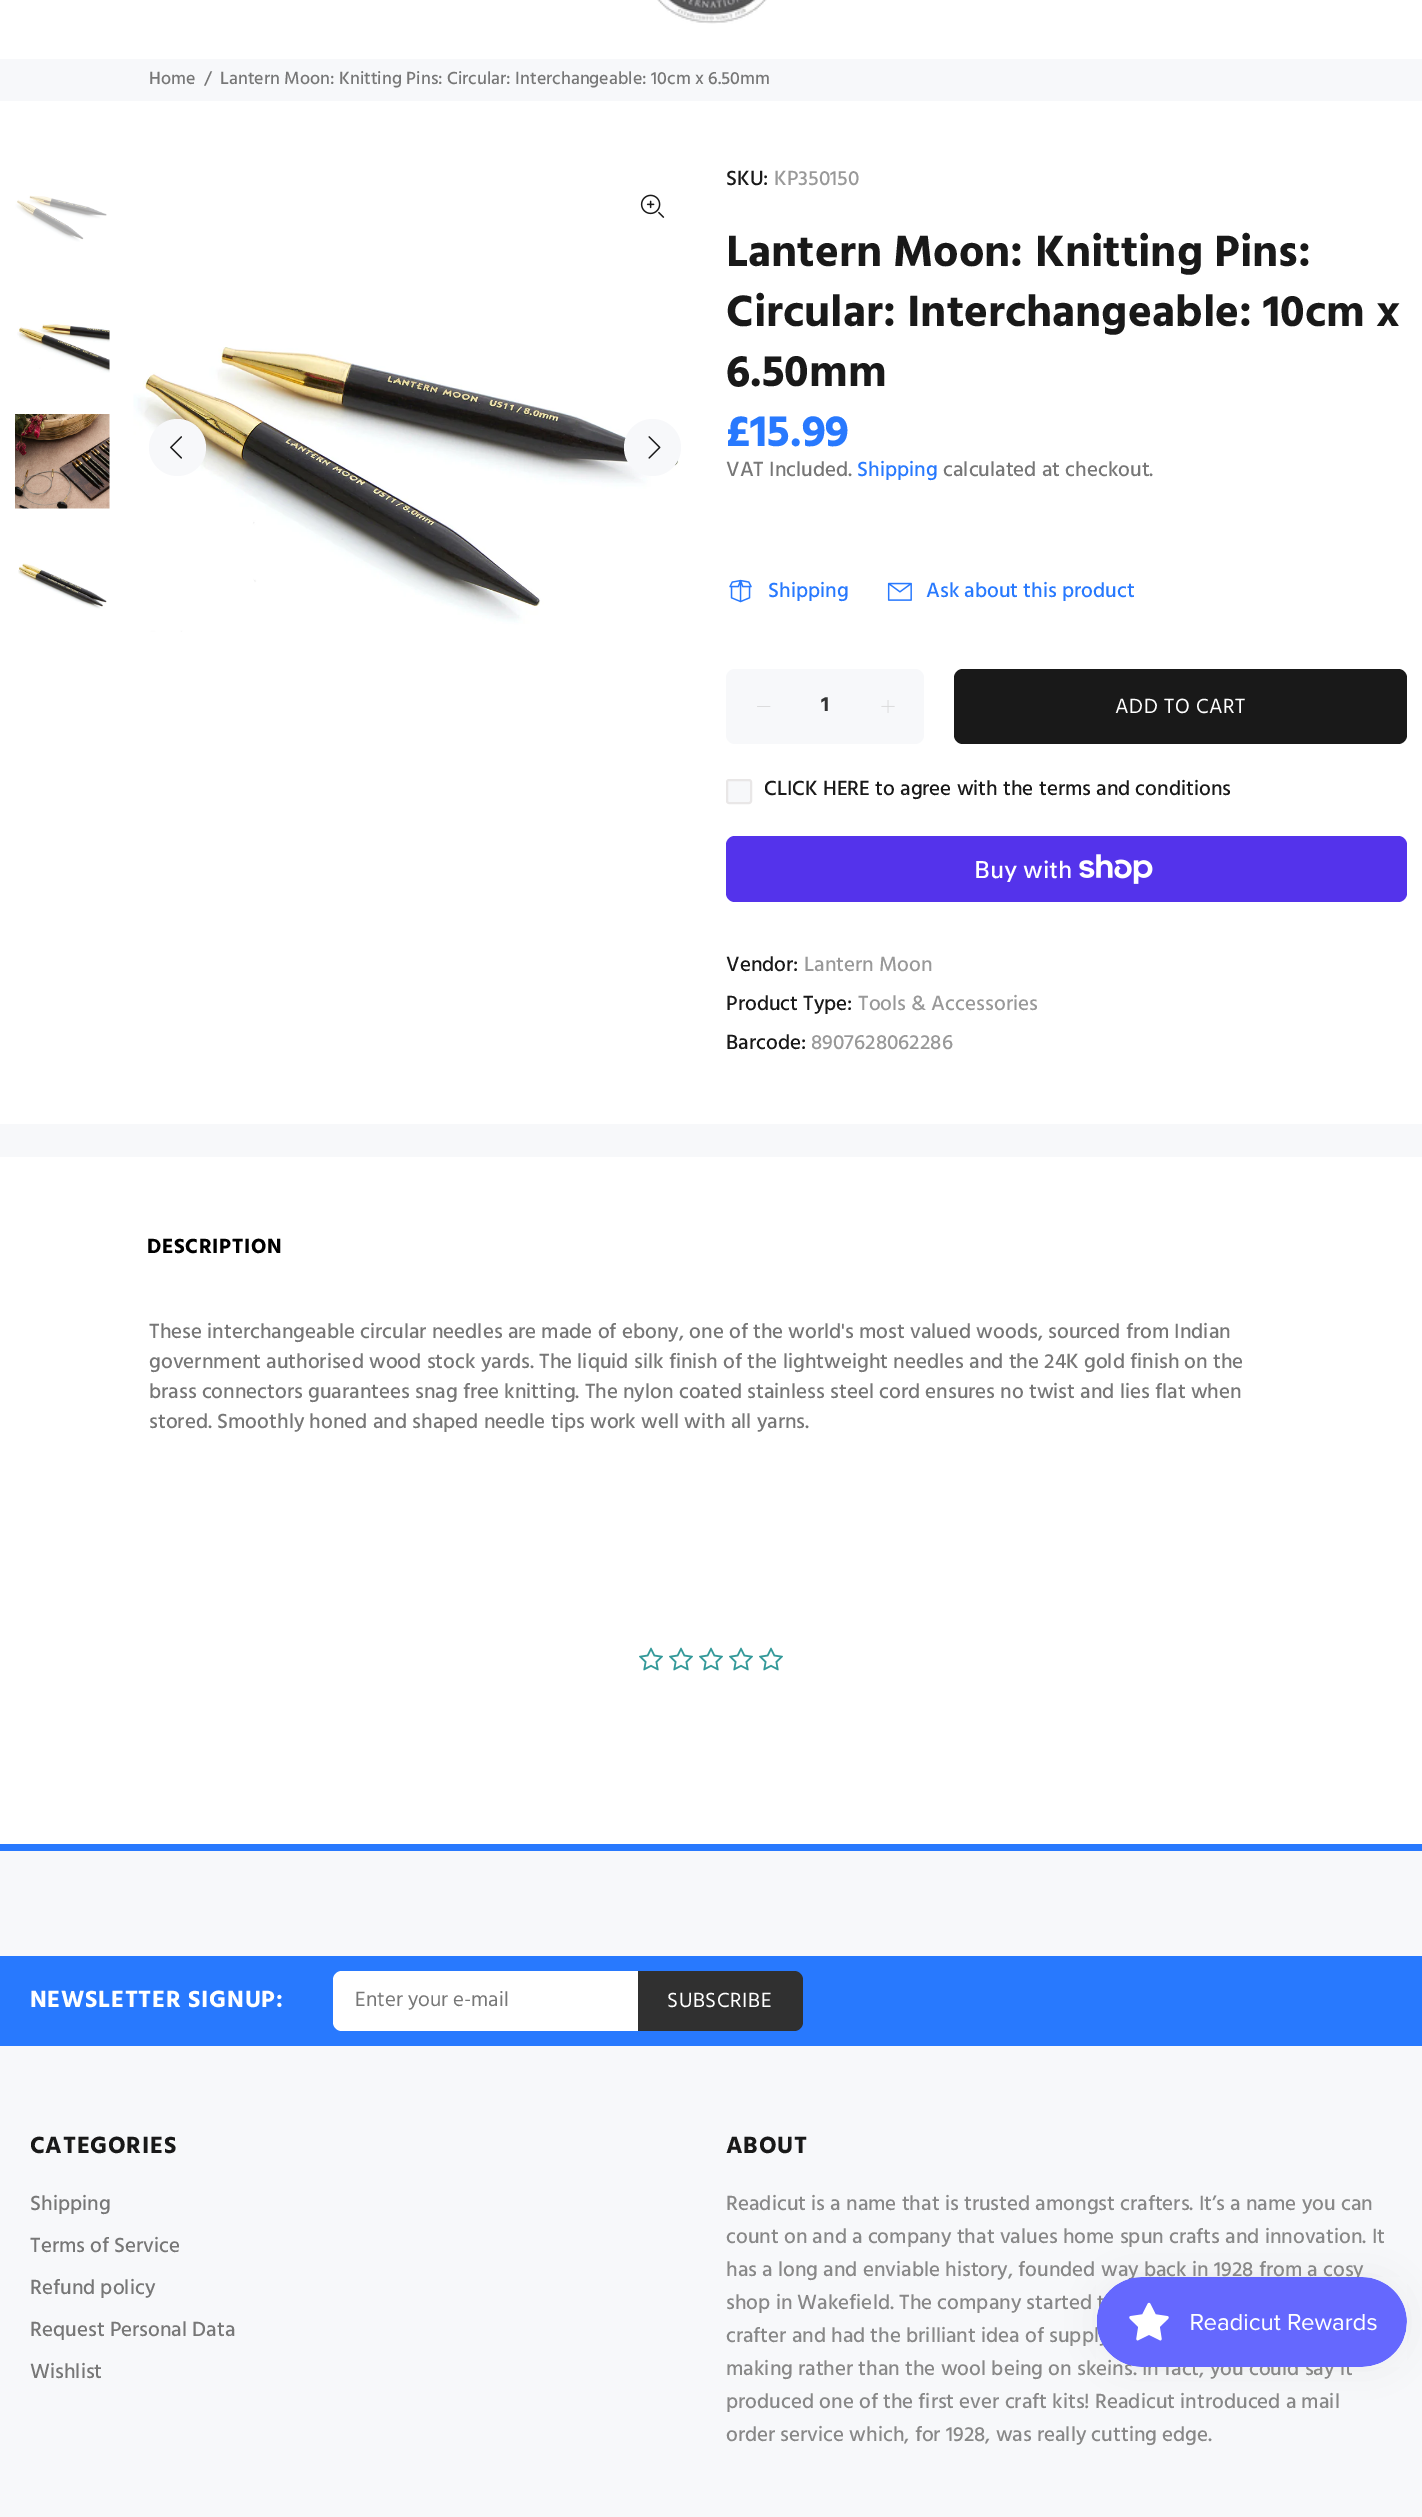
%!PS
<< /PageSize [1422 2517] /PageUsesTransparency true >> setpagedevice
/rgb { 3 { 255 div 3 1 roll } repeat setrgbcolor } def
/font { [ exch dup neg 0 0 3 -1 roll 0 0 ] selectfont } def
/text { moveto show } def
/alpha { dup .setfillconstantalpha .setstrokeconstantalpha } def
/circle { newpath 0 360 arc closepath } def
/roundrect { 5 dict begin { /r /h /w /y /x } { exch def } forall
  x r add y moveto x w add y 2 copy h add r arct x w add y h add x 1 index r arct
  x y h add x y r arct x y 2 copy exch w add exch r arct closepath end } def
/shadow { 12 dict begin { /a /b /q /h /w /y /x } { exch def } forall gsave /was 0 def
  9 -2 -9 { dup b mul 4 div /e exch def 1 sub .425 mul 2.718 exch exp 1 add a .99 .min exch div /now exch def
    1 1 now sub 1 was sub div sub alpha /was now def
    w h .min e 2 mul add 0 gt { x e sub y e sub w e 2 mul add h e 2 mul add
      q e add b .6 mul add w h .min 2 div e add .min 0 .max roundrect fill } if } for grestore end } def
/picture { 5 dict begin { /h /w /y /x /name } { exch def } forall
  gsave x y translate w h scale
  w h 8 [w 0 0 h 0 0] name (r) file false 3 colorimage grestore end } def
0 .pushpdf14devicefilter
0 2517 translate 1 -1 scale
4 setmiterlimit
255 255 255 rgb
0 0 1422 2517 rectfill
(img_01.rgb) 657 0 110 24 picture
247 248 250 rgb
0 59 1422 42 rectfill
(img_02.rgb) 15 195 93 47 picture
(img_03.rgb) 17 324 93 49 picture
(img_04.rgb) 15 414 95 95 picture
(img_05.rgb) 18 563 89 46 picture
(img_06.rgb) 640 194 25 24 picture
(img_07.rgb) 133 347 546 285 picture
177.5 447.5 28.5 circle fill
(img_08.rgb) 170 436 12 23 picture
652.5 447.5 28.5 circle fill
(img_09.rgb) 648 436 13 23 picture
(img_10.rgb) 729 579 23 24 picture
(img_11.rgb) 887 582 25 19 picture
726 669 198 75 9 roundrect fill
(img_12.rgb) 757 706 14 1 picture
(img_13.rgb) 881 700 14 13 picture
25 25 25 rgb
954 669 453 75 9 roundrect fill
247 248 250 rgb
727 780 24 23 2 roundrect gsave fill grestore
233 231 231 rgb
2 setlinewidth
stroke
84 51 235 rgb
726 836 681 66 9 roundrect fill
(img_14.rgb) 1079 854 74 30 picture
247 248 250 rgb
0 1124 1422 33 rectfill
(img_15.rgb) 639 1647 24 24 picture
(img_15.rgb) 669 1647 24 24 picture
(img_15.rgb) 699 1647 24 24 picture
(img_15.rgb) 729 1647 24 24 picture
(img_15.rgb) 759 1647 24 24 picture
0 1851 1422 666 rectfill
40 121 254 rgb
0 1844 1422 7 rectfill
0 1956 1422 90 rectfill
255 255 255 rgb
342 1971 moveto 296 0 rlineto 0 60 rlineto -296 0 rlineto -5 0 -9 -4 -9 -9 rcurveto 0 -42 rlineto 0 -5 4 -9 9 -9 rcurveto closepath fill
48 48 48 rgb
638 1971 moveto 156 0 rlineto 5 0 9 4 9 9 rcurveto 0 42 rlineto 0 5 -4 9 -9 9 rcurveto -156 0 rlineto closepath fill
0 0 0 rgb
1097 2277 310 90 45 19 0.05 shadow
/Hind-Medium 18 font
119 119 119 rgb
(Home) 149 84 text
(/) 204 84 text
(Lantern Moon: Knitting Pins: Circular: Interchangeable: 10cm x 6.50mm) 220 84 text
/Hind-Medium 21 font
25 25 25 rgb
(SKU:) 726 185 text
153 153 153 rgb
(KP350150) 774 185 text
/Hind-Bold 45 font
25 25 25 rgb
726 266 moveto 0.05 0 (Lantern Moon: Knitting Pins:) ashow
726 326 moveto 0.05 0 (Circular: Interchangeable: 10cm x) ashow
726 386 moveto 0.05 0 (6.50mm) ashow
40 121 254 rgb
(£15.99) 726 446 text
/Hind-Medium 21 font
119 119 119 rgb
(VAT Included.) 726 476 text
40 121 254 rgb
(Shipping) 857 476 text
119 119 119 rgb
(calculated at checkout.) 943 476 text
40 121 254 rgb
(Shipping) 768 597 text
(Ask about this product) 926 597 text
/Hind-Bold 21 font
51 51 51 rgb
(1) 821 711 text
/Hind-Regular 21 font
255 255 255 rgb
1115 713 moveto 0.6 0 (ADD TO CART) ashow
/Hind-Medium 21 font
25 25 25 rgb
(CLICK HERE to agree with the terms and conditions) 764 795 text
/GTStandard-Medium 24 font
255 255 255 rgb
(Buy with) 974 878 text
/Hind-Medium 21 font
25 25 25 rgb
(Vendor:) 726 971 text
153 153 153 rgb
(Lantern Moon) 804 971 text
25 25 25 rgb
(Product Type:) 726 1010 text
153 153 153 rgb
(Tools & Accessories) 858 1010 text
25 25 25 rgb
(Barcode:) 726 1049 text
153 153 153 rgb
(8907628062286) 811 1049 text
/Hind-Bold 21 font
0 0 0 rgb
147 1253 moveto 0.6 0 (DESCRIPTION) ashow
/Hind-Medium 21 font
119 119 119 rgb
(These interchangeable circular needles are made of ebony, one of the world's most valued woods, sourced from Indian) 149 1338 text
(government authorised wood stock yards. The liquid silk finish of the lightweight needles and the 24K gold finish on the) 149 1368 text
(brass connectors guarantees snag free knitting. The nylon coated stainless steel cord ensures no twist and lies flat when) 149 1398 text
(stored. Smoothly honed and shaped needle tips work well with all yarns.) 149 1428 text
/Hind-Bold 24 font
255 255 255 rgb
30 2007 moveto 0.75 0 (NEWSLETTER SIGNUP:) ashow
/Hind-Regular 21 font
119 119 119 rgb
(Enter your e-mail) 355 2006 text
255 255 255 rgb
667 2007 moveto 0.6 0 (SUBSCRIBE) ashow
/Hind-Bold 24 font
25 25 25 rgb
30 2153 moveto 0.75 0 (CATEGORIES) ashow
/Hind-Medium 21 font
119 119 119 rgb
(Shipping) 30 2210 text
(Terms of Service) 30 2252 text
(Refund policy) 30 2294 text
(Request Personal Data) 30 2336 text
(Wishlist) 30 2378 text
/Hind-Bold 24 font
25 25 25 rgb
726 2153 moveto 0.75 0 (ABOUT) ashow
/Hind-Medium 21 font
136 136 136 rgb
(Readicut is a name that is trusted amongst crafters. It’s a name you can) 726 2210 text
(count on and a company that values home spun crafts and innovation. It) 726 2243 text
(has a long and enviable history, founded way back in 1928 from a cosy) 726 2276 text
(shop in Wakefield. The company started t) 726 2309 text
(crafter and had the brilliant idea of suppl) 726 2342 text
(making rather than the wool being on skeins. In fact, you could say it) 726 2375 text
(produced one of the first ever craft kits! Readicut introduced a mail) 726 2408 text
(order service which, for 1928, was really cutting edge.) 726 2441 text
(img_16.rgb) 1096 2277 311 90 picture
.poppdf14devicefilter showpage
